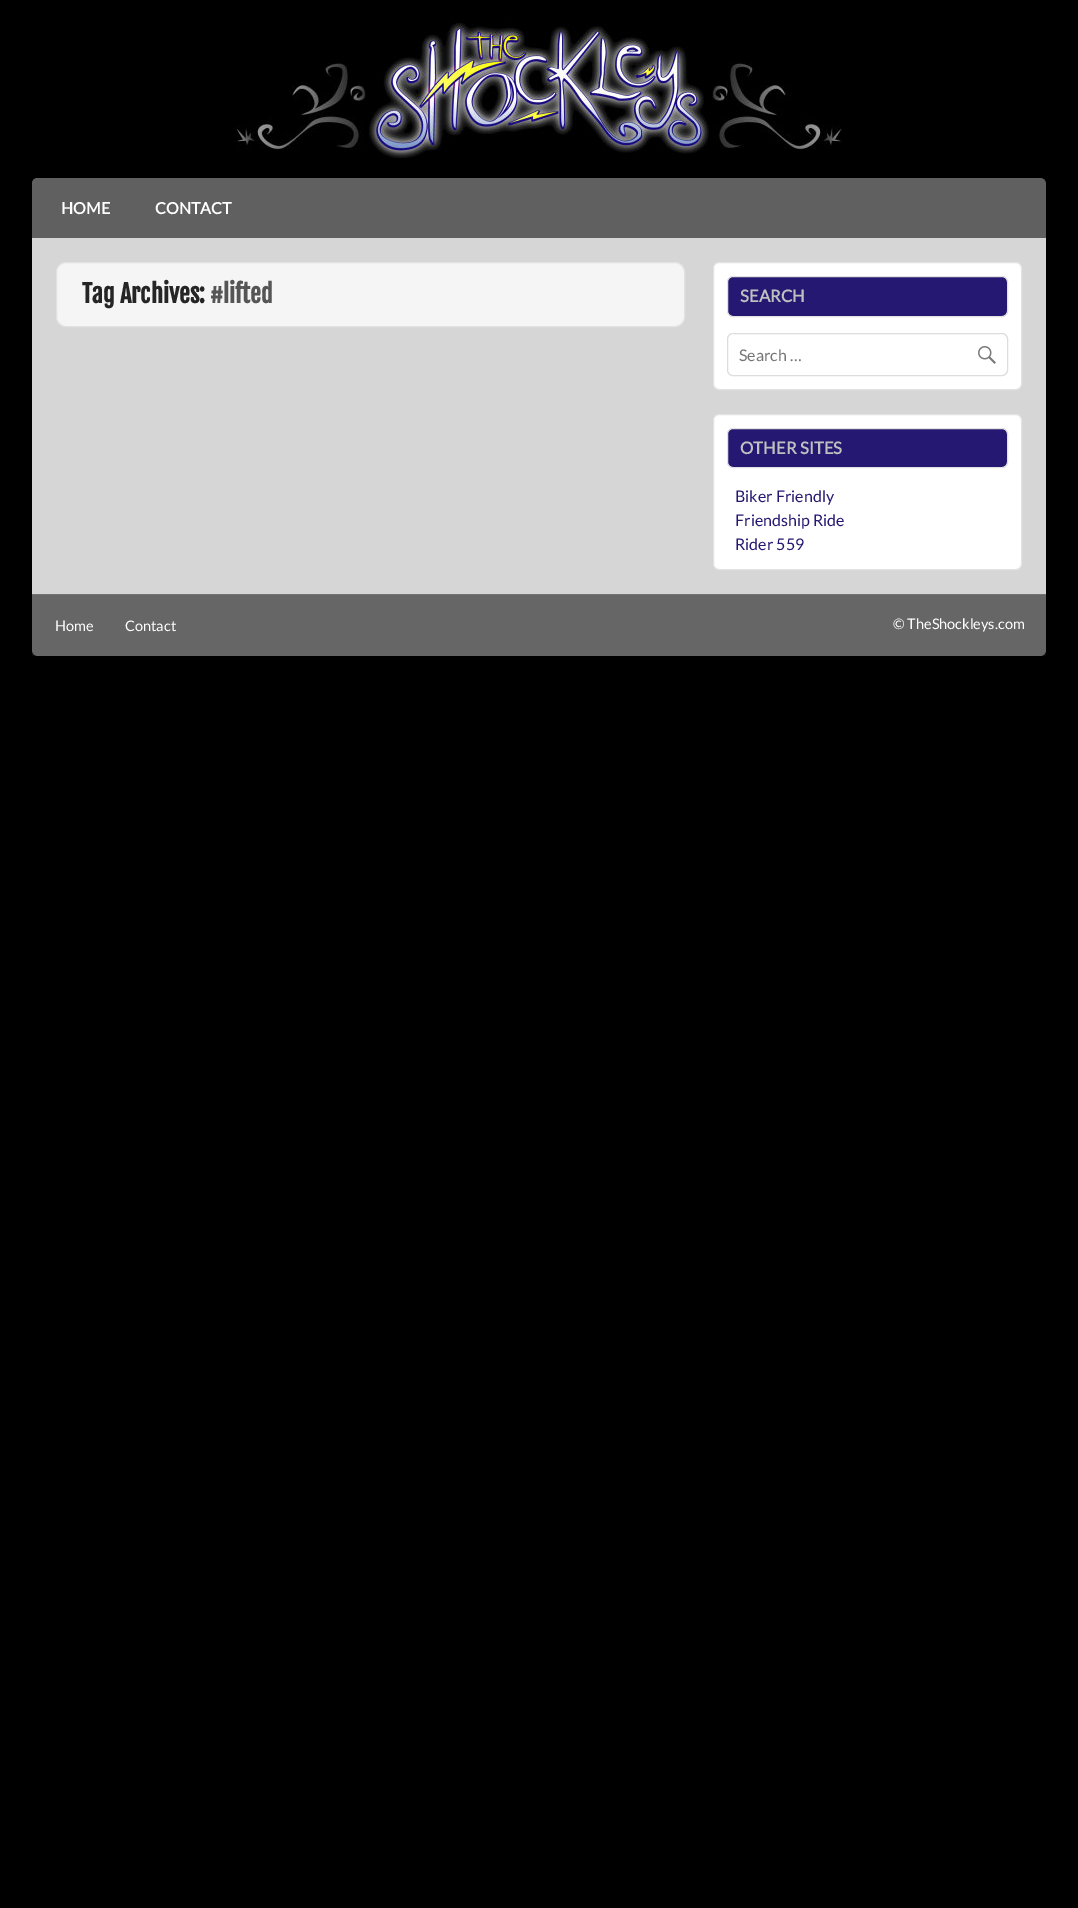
%!PS
<< /PageSize [1078 1908] >> setpagedevice
/rgb { 3 { 255 div 3 1 roll } repeat setrgbcolor } def
/font { [ exch dup neg 0 0 3 -1 roll 0 0 ] selectfont } def
/text { moveto show } def
/roundrect { 5 dict begin { /r /h /w /y /x } { exch def } forall
  x r add y moveto x w add y 2 copy h add r arct x w add y h add x 1 index r arct
  x y h add x y r arct x y 2 copy exch w add exch r arct closepath end } def
/picture { 5 dict begin { /h /w /y /x /name } { exch def } forall
  gsave x y translate w h scale
  w h 8 [w 0 0 h 0 0] name (r) file false 3 colorimage grestore end } def
0 1908 translate 1 -1 scale
4 setmiterlimit
0 0 0 rgb
0 0 1078 1908 rectfill
10 10 10 rgb
32 650 1014 6 rectfill
(img_01.rgb) 236 63 130 87 picture
(img_02.rgb) 369 23 340 135 picture
(img_03.rgb) 712 62 130 88 picture
96 96 96 rgb
38 178 moveto 1002 0 rlineto 3.5 0 6 2.5 6 6 rcurveto 0 54 rlineto -1014 0 rlineto 0 -54 rlineto 0 -3.5 2.5 -6 6 -6 rcurveto closepath fill
38 178 moveto 216 0 rlineto 3.5 0 6 2.5 6 6 rcurveto 0 54 rlineto -228 0 rlineto 0 -54 rlineto 0 -3.5 2.5 -6 6 -6 rcurveto closepath fill
214 214 214 rgb
32 238 1014 356 rectfill
245 245 245 rgb
56.5 262.5 628 64 9.5 roundrect gsave fill grestore
226 226 226 rgb
stroke
255 255 255 rgb
713.5 262.5 308 127 5.5 roundrect gsave fill grestore
226 226 226 rgb
stroke
37 24 114 rgb
727.5 276.5 280 40 5.5 roundrect gsave fill grestore
226 226 226 rgb
stroke
221 221 221 rgb
727.5 333.5 280 42 5.5 roundrect stroke
(img_04.rgb) 978 346 18 18 picture
255 255 255 rgb
713.5 414.5 308 155 5.5 roundrect gsave fill grestore
226 226 226 rgb
stroke
37 24 114 rgb
727.5 428.5 280 39 5.5 roundrect gsave fill grestore
226 226 226 rgb
stroke
102 102 102 rgb
32 594 moveto 1014 0 rlineto 0 56 rlineto 0 3.5 -2.5 6 -6 6 rcurveto -1002 0 rlineto -3.5 0 -6 -2.5 -6 -6 rcurveto closepath fill
115 115 115 rgb
32 594 1014 1 rectfill
/Lato-Bold 16 font
255 255 255 rgb
(HOME) 61 214 text
(CONTACT) 155 214 text
/FjallaOne-Bold 24.25 font
37 37 37 rgb
(Tag Archives:) 82 303 text
85 85 85 rgb
(#lifted) 210 303 text
/Lato-Bold 16.75 font
192 192 192 rgb
(SEARCH) 740 302 text
/Lato-Regular 16 font
117 117 117 rgb
(Search …) 739 361 text
/Lato-Bold 16.75 font
192 192 192 rgb
(OTHER SITES) 740 454 text
/Lato-Regular 16 font
37 24 114 rgb
(Biker Friendly) 735 502 text
(Friendship Ride) 735 526 text
(Rider 559) 735 550 text
/Lato-Regular 14.5 font
255 255 255 rgb
(Home) 55 631 text
(Contact) 125 631 text
(© TheShockleys.com) 893 629 text
showpage
